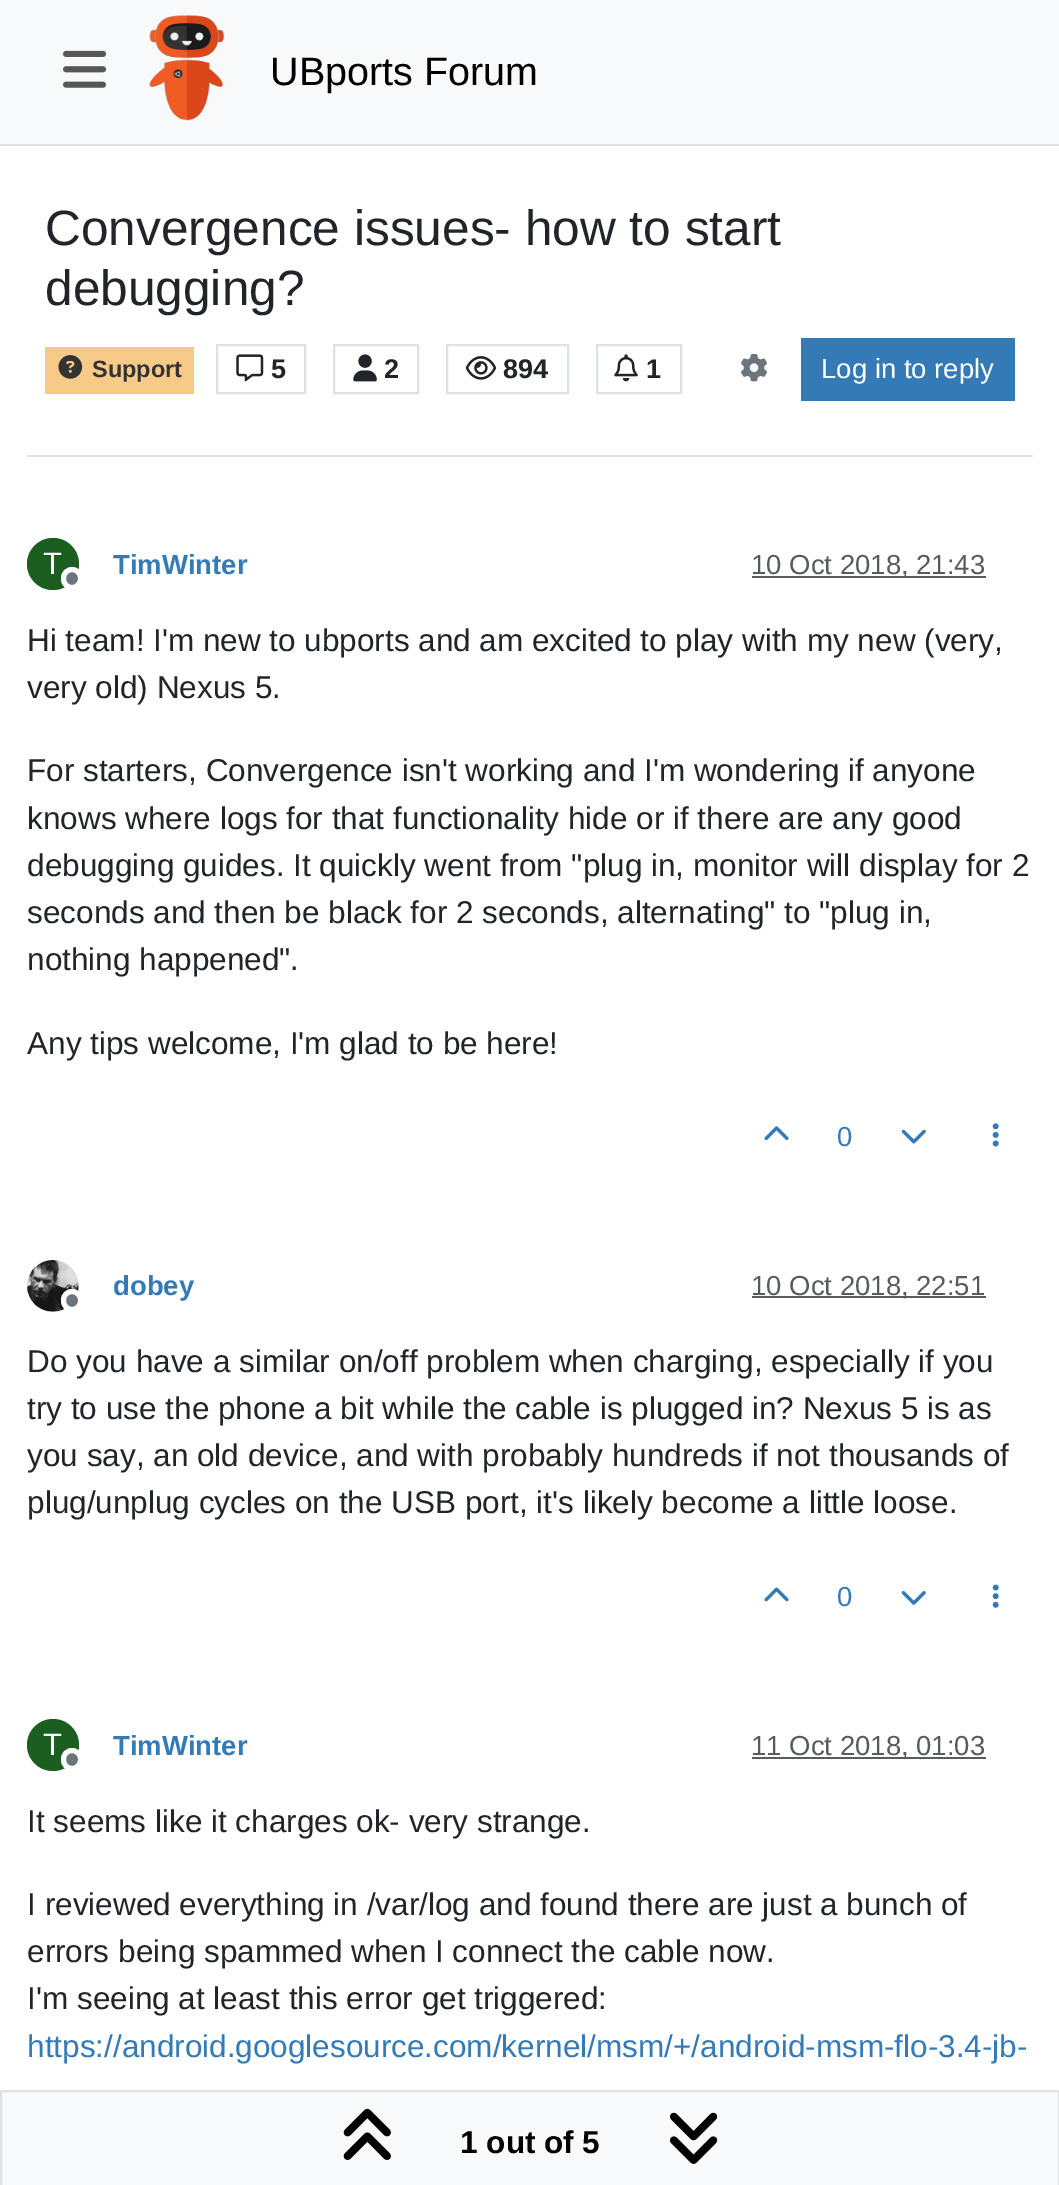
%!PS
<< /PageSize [1059 2185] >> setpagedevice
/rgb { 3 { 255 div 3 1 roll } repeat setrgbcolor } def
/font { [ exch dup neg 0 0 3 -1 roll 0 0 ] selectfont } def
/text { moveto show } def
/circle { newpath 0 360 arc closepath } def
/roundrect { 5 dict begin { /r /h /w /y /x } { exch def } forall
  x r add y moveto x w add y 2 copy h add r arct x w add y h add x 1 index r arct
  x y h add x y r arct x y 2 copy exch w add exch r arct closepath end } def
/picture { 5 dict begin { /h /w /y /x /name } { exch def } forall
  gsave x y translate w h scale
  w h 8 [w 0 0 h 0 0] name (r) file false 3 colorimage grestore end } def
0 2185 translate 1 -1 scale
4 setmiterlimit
255 255 255 rgb
0 0 1059 2185 rectfill
248 249 250 rgb
0 0 1059 144 rectfill
222 226 230 rgb
0 144 1059 2 rectfill
(img_01.rgb) 63 50 43 38 picture
(img_02.rgb) 149 15 76 106 picture
27 455 1006 2 rectfill
247 202 136 rgb
45 347 149 47 rectfill
(img_03.rgb) 58 355 25 24 picture
222 226 230 rgb
2 setlinewidth
217 345 88 48 rectstroke
(img_04.rgb) 236 354 28 28 picture
334 345 84 48 rectstroke
(img_05.rgb) 353 354 24 28 picture
447 345 121 48 rectstroke
(img_06.rgb) 465 356 32 24 picture
597 345 84 48 rectstroke
(img_07.rgb) 614 354 24 28 picture
(img_08.rgb) 741 353 26 29 picture
51 122 183 rgb
801 338 214 63 rectfill
27 94 32 rgb
53 564 26 circle fill
89 92 95 rgb
752 576 234 2 rectfill
(img_09.rgb) 764 1126 25 15 picture
(img_10.rgb) 901 1129 25 15 picture
(img_11.rgb) 992 1123 7 24 picture
(img_12.rgb) 27 1260 52 52 picture
108 117 125 rgb
63.5 1291.5 17 18 8.5 roundrect gsave fill grestore
255 255 255 rgb
5 setlinewidth
stroke
89 92 95 rgb
752 1296 234 2 rectfill
(img_13.rgb) 764 1587 25 15 picture
(img_14.rgb) 901 1591 25 14 picture
(img_15.rgb) 992 1584 7 24 picture
27 94 32 rgb
53 1745 26 circle fill
89 92 95 rgb
752 1757 234 2 rectfill
248 249 250 rgb
1 2091 moveto 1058 0 rlineto 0 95 rlineto -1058 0 rlineto closepath gsave fill grestore
222 226 230 rgb
2 setlinewidth
stroke
(img_16.rgb) 343 2108 48 52 picture
(img_17.rgb) 670 2112 48 52 picture
/LiberationSans-Regular 39.5 font
0 0 0 rgb
(UBports Forum) 270 85 text
/LiberationSans-Regular 49.6 font
33 37 41 rgb
(Convergence issues- how to start) 45 245 text
(debugging?) 45 305 text
/LiberationSans-Bold 23.5 font
51 51 51 rgb
(Support) 92 377 text
/LiberationSans-Bold 27 font
33 37 41 rgb
(5) 271 378 text
(2) 384 378 text
(894) 503 378 text
(1) 646 378 text
/LiberationSans-Regular 27.5 font
255 255 255 rgb
(Log in to reply) 821 378 text
/LiberationSans-Regular 31 font
(T) 43 574 text
108 117 125 rgb
63.5 569.5 17 18 8.5 roundrect gsave fill grestore
255 255 255 rgb
5 setlinewidth
stroke
/LiberationSans-Bold 27.5 font
51 122 183 rgb
(TimWinter) 113 574 text
/LiberationSans-Regular 27.5 font
88 91 94 rgb
(10 Oct 2018, 21:43) 751 574 text
/LiberationSans-Regular 31.5 font
33 37 41 rgb
(Hi team! I'm new to ubports and am excited to play with my new \(very,) 27 651 text
(very old\) Nexus 5.) 27 698 text
(For starters, Convergence isn't working and I'm wondering if anyone) 27 781 text
(knows where logs for that functionality hide or if there are any good) 27 829 text
(debugging guides. It quickly went from "plug in, monitor will display for 2) 27 876 text
(seconds and then be black for 2 seconds, alternating" to "plug in,) 27 923 text
(nothing happened".) 27 970 text
(Any tips welcome, I'm glad to be here!) 27 1054 text
/LiberationSans-Regular 27.5 font
51 122 183 rgb
(0) 837 1146 text
/LiberationSans-Bold 27.5 font
(dobey) 113 1295 text
/LiberationSans-Regular 27.5 font
88 91 94 rgb
(10 Oct 2018, 22:51) 751 1295 text
/LiberationSans-Regular 31.5 font
33 37 41 rgb
(Do you have a similar on/off problem when charging, especially if you) 27 1372 text
(try to use the phone a bit while the cable is plugged in? Nexus 5 is as) 27 1419 text
(you say, an old device, and with probably hundreds if not thousands of) 27 1466 text
(plug/unplug cycles on the USB port, it's likely become a little loose.) 27 1513 text
/LiberationSans-Regular 27.5 font
51 122 183 rgb
(0) 837 1606 text
/LiberationSans-Regular 31 font
255 255 255 rgb
(T) 43 1755 text
108 117 125 rgb
63.5 1750.5 17 18 8.5 roundrect gsave fill grestore
255 255 255 rgb
stroke
/LiberationSans-Bold 27.5 font
51 122 183 rgb
(TimWinter) 113 1755 text
/LiberationSans-Regular 27.5 font
88 91 94 rgb
(11 Oct 2018, 01:03) 751 1755 text
/LiberationSans-Regular 31.5 font
33 37 41 rgb
(It seems like it charges ok- very strange.) 27 1832 text
(I reviewed everything in /var/log and found there are just a bunch of) 27 1915 text
(errors being spammed when I connect the cable now.) 27 1962 text
(I'm seeing at least this error get triggered:) 27 2009 text
51 122 183 rgb
(https://android.googlesource.com/kernel/msm/+/android-msm-flo-3.4-jb-) 27 2057 text
/LiberationSans-Bold 31.5 font
0 0 0 rgb
(1 out of 5) 460 2153 text
showpage
